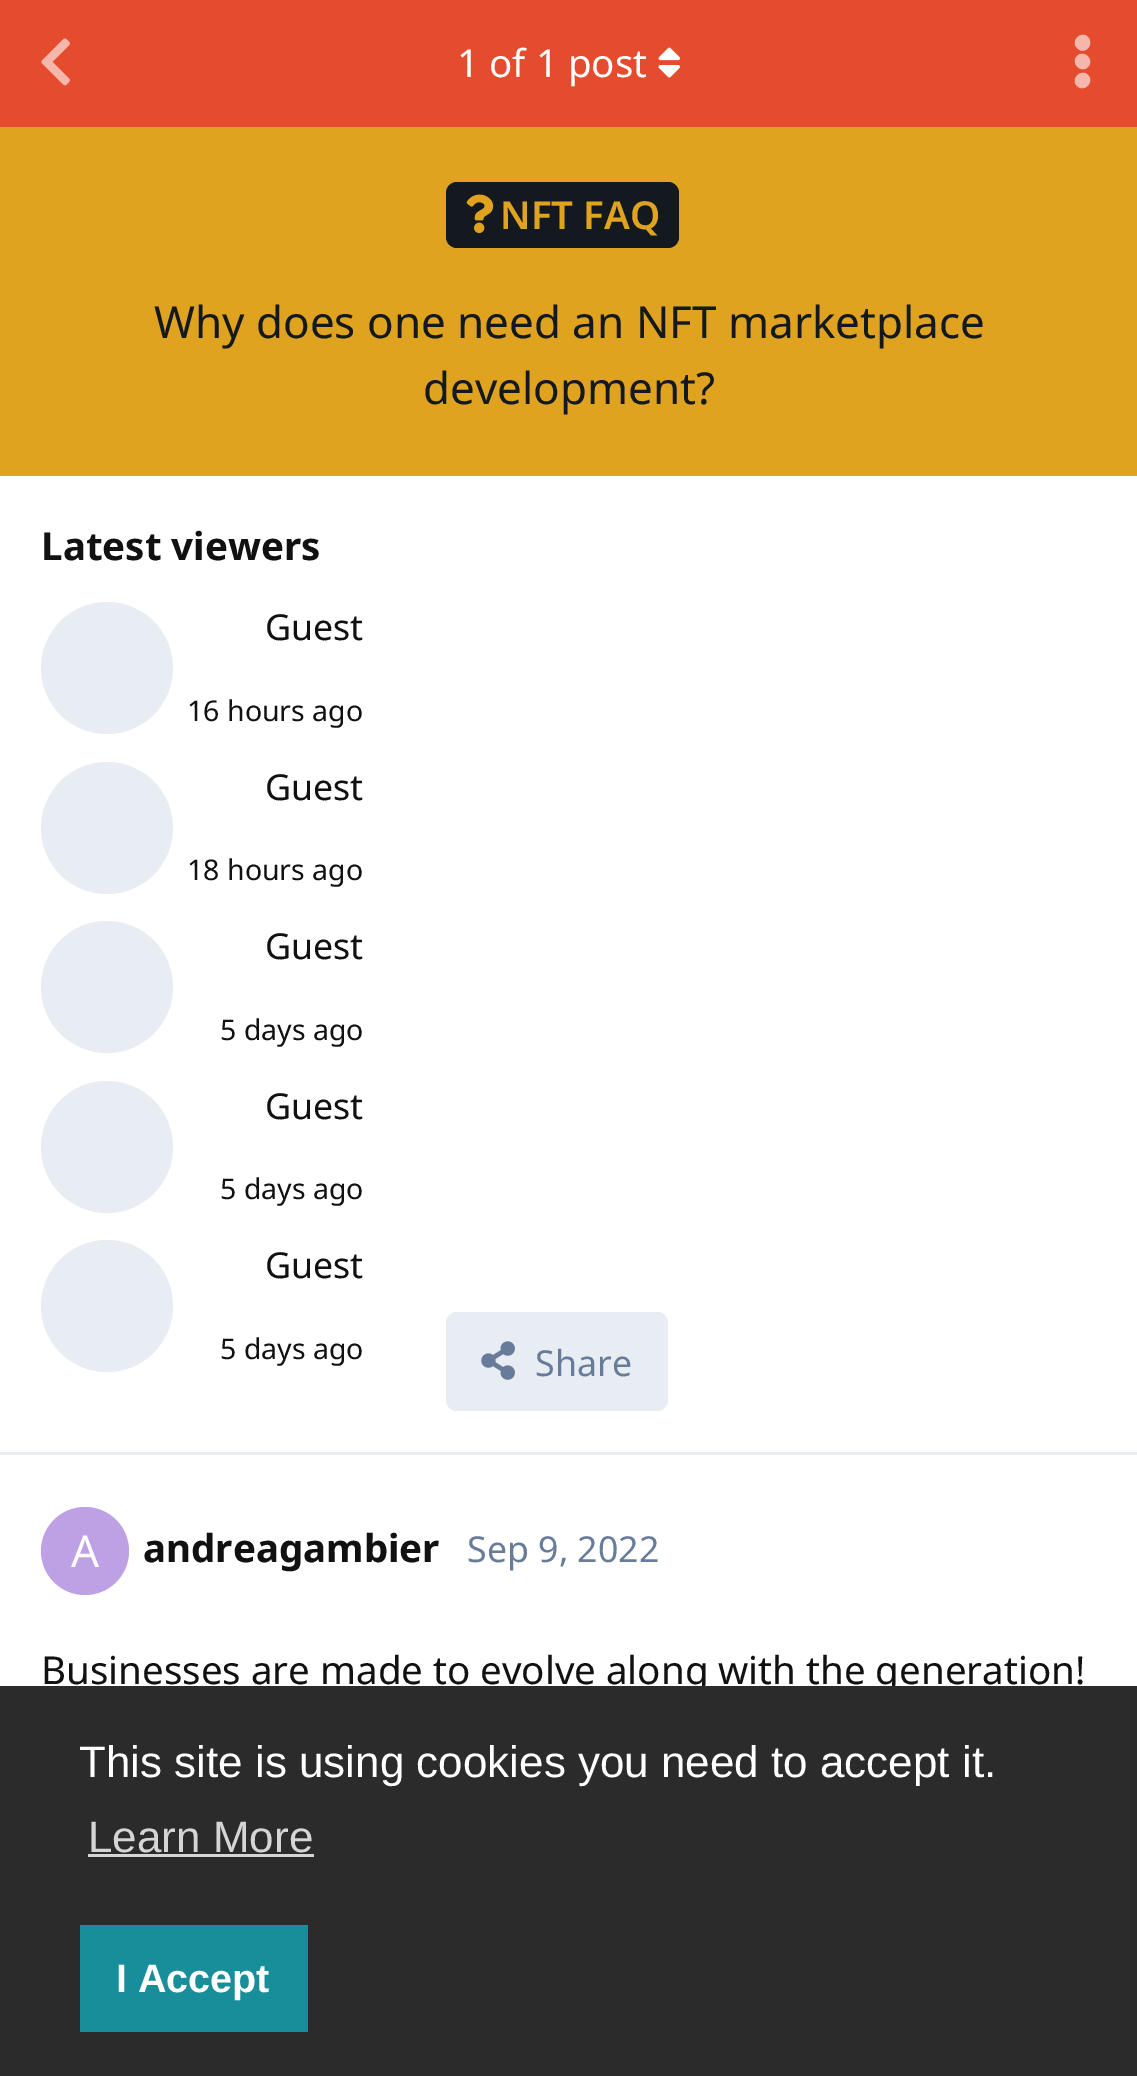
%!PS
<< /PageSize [1137 2076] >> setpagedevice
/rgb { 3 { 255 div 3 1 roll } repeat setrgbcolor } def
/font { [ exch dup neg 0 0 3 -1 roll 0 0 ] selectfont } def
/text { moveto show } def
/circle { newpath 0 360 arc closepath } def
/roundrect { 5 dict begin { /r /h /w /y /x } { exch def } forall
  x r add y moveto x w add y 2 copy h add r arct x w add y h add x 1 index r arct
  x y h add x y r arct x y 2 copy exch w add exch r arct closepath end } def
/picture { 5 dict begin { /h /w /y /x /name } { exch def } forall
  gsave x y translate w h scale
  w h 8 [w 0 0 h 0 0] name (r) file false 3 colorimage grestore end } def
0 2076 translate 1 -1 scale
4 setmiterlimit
255 255 255 rgb
0 0 1137 2076 rectfill
229 76 45 rgb
0 0 1137 127 rectfill
(img_01.rgb) 41 38 29 48 picture
232 236 243 rgb
0 1452 1137 3 rectfill
(img_02.rgb) 658 47 22 31 picture
245 183 171 rgb
1077 56 moveto 7 -7 18 4 11 11 rcurveto -7 7 -18 -4 -11 -11 rcurveto closepath 1077 48 moveto -7 -7 4 -18 11 -11 rcurveto 7 8 -4 19 -11 11 rcurveto closepath 1077 86 moveto -7 -7 4 -18 11 -11 rcurveto 7 7 -4 18 -11 11 rcurveto closepath fill
232 236 243 rgb
107 668 66 circle fill
107 828 66 circle fill
107 987 66 circle fill
107 1147 66 circle fill
107 1306 66 circle fill
446 1312 222 99 11 roundrect fill
(img_03.rgb) 481 1341 34 39 picture
190 160 229 rgb
85 1551 44 circle fill
223 163 32 rgb
0 127 1137 349 rectfill
20 25 31 rgb
446 182 233 66 11 roundrect fill
(img_04.rgb) 466 194 28 40 picture
/NotoSans-Regular 38.5 font
255 255 255 rgb
(1 of 1 post) 457 77 text
/NotoSans-Bold 38.5 font
17 17 17 rgb
(Latest viewers) 41 560 text
/NotoSans-Regular 35.75 font
(Guest) 265 640 text
/NotoSans-Regular 28.5 font
(16 hours ago) 187 721 text
/NotoSans-Regular 35.75 font
(Guest) 265 800 text
/NotoSans-Regular 28.5 font
(18 hours ago) 187 880 text
/NotoSans-Regular 35.75 font
(Guest) 265 959 text
/NotoSans-Regular 28.5 font
(5 days ago) 220 1040 text
/NotoSans-Regular 35.75 font
(Guest) 265 1119 text
/NotoSans-Regular 28.5 font
(5 days ago) 220 1199 text
/NotoSans-Regular 35.75 font
(Guest) 265 1278 text
/NotoSans-Regular 28.5 font
(5 days ago) 220 1359 text
/NotoSans-Regular 35.75 font
102 124 153 rgb
(Share) 535 1376 text
/NotoSans-Regular 44 font
255 255 255 rgb
(A) 71 1567 text
/NotoSans-Bold 38.5 font
17 17 17 rgb
(andreagambier) 143 1562 text
/NotoSans-Regular 35.75 font
102 124 153 rgb
(Sep 9, 2022) 467 1562 text
/NotoSans-Regular 38.5 font
17 17 17 rgb
(Businesses are made to evolve along with the generation!) 41 1684 text
/NotoSans-SemiBold 38.5 font
223 163 32 rgb
(NFT FAQ) 500 229 text
/NotoSans-Regular 44 font
20 25 31 rgb
(Why does one need an NFT marketplace) 154 338 text
(development?) 423 404 text
43 43 43 rgb
0 1686 1137 390 rectfill
/LiberationSans-Regular 44 font
255 255 255 rgb
(This site is using cookies you need to accept it.) 79 1777 text
213 213 213 rgb
(Learn More) 88 1852 text
88 1854 226 3 rectfill
23 142 153 rgb
80 1925 228 107 rectfill
/LiberationSans-Bold 39.5 font
255 255 255 rgb
(I Accept) 116 1992 text
showpage
